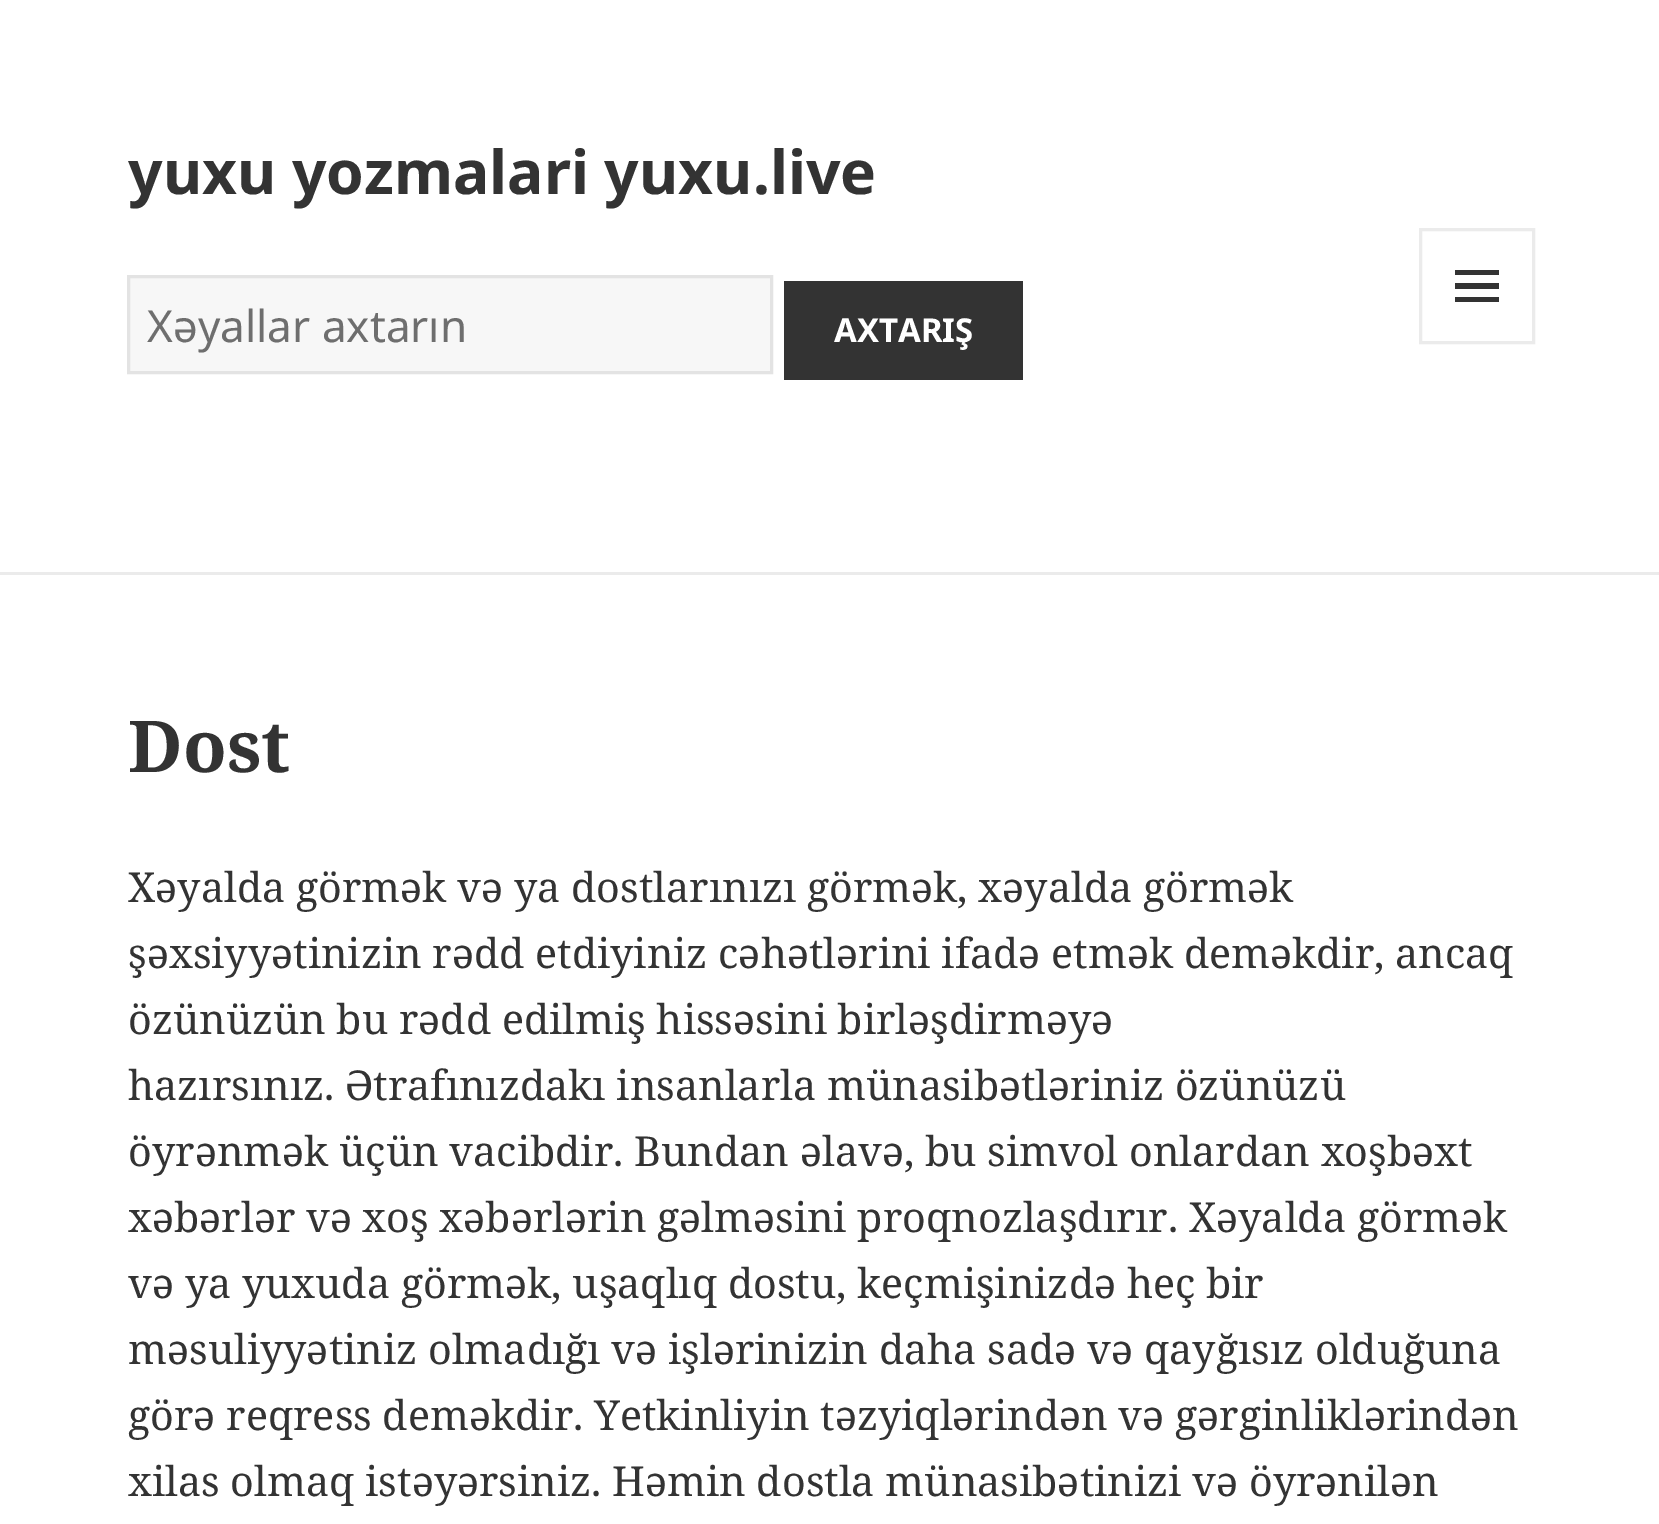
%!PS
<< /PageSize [1659 1524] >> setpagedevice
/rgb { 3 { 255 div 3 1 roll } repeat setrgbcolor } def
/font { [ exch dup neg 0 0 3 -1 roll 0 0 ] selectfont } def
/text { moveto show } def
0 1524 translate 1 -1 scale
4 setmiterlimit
255 255 255 rgb
0 0 1659 1524 rectfill
235 235 235 rgb
0 572 1659 3 rectfill
247 247 247 rgb
128.5 276.5 moveto 643 0 rlineto 0 96 rlineto -643 0 rlineto closepath gsave fill grestore
227 227 227 rgb
3 setlinewidth
stroke
51 51 51 rgb
784 281 239 99 rectfill
235 235 235 rgb
1420.5 229.5 113 113 rectstroke
51 51 51 rgb
1455 302 moveto 0 -5 rlineto 44 0 rlineto 0 5 rlineto closepath 1455 270 moveto 44 0 rlineto 0 5 rlineto -44 0 rlineto closepath 1455 289 moveto 0 -6 rlineto 44 0 rlineto 0 6 rlineto closepath fill
/NotoSans-Bold 60.5 font
(yuxu yozmalari yuxu.live) 128 194 text
/NotoSans-Regular 44 font
110 110 110 rgb
(Xəyallar axtarın) 147 342 text
/NotoSans-Bold 33 font
255 255 255 rgb
(AXTARIŞ) 834 342 text
/NotoSerif-Bold 71.5 font
51 51 51 rgb
(Dost) 128 772 text
/NotoSerif-Regular 41.25 font
(Xəyalda görmək və ya dostlarınızı görmək, xəyalda görmək) 128 902 text
(şəxsiyyətinizin rədd etdiyiniz cəhətlərini ifadə etmək deməkdir, ancaq) 128 968 text
(özünüzün bu rədd edilmiş hissəsini birləşdirməyə) 128 1034 text
(hazırsınız. Ətrafınızdakı insanlarla münasibətləriniz özünüzü) 128 1100 text
(öyrənmək üçün vacibdir. Bundan əlavə, bu simvol onlardan xoşbəxt) 128 1166 text
(xəbərlər və xoş xəbərlərin gəlməsini proqnozlaşdırır. Xəyalda görmək) 128 1232 text
(və ya yuxuda görmək, uşaqlıq dostu, keçmişinizdə heç bir) 128 1298 text
(məsuliyyətiniz olmadığı və işlərinizin daha sadə və qayğısız olduğuna) 128 1364 text
(görə reqress deməkdir. Yetkinliyin təzyiqlərindən və gərginliklərindən) 128 1430 text
(xilas olmaq istəyərsiniz. Həmin dostla münasibətinizi və öyrənilən) 128 1496 text
showpage
